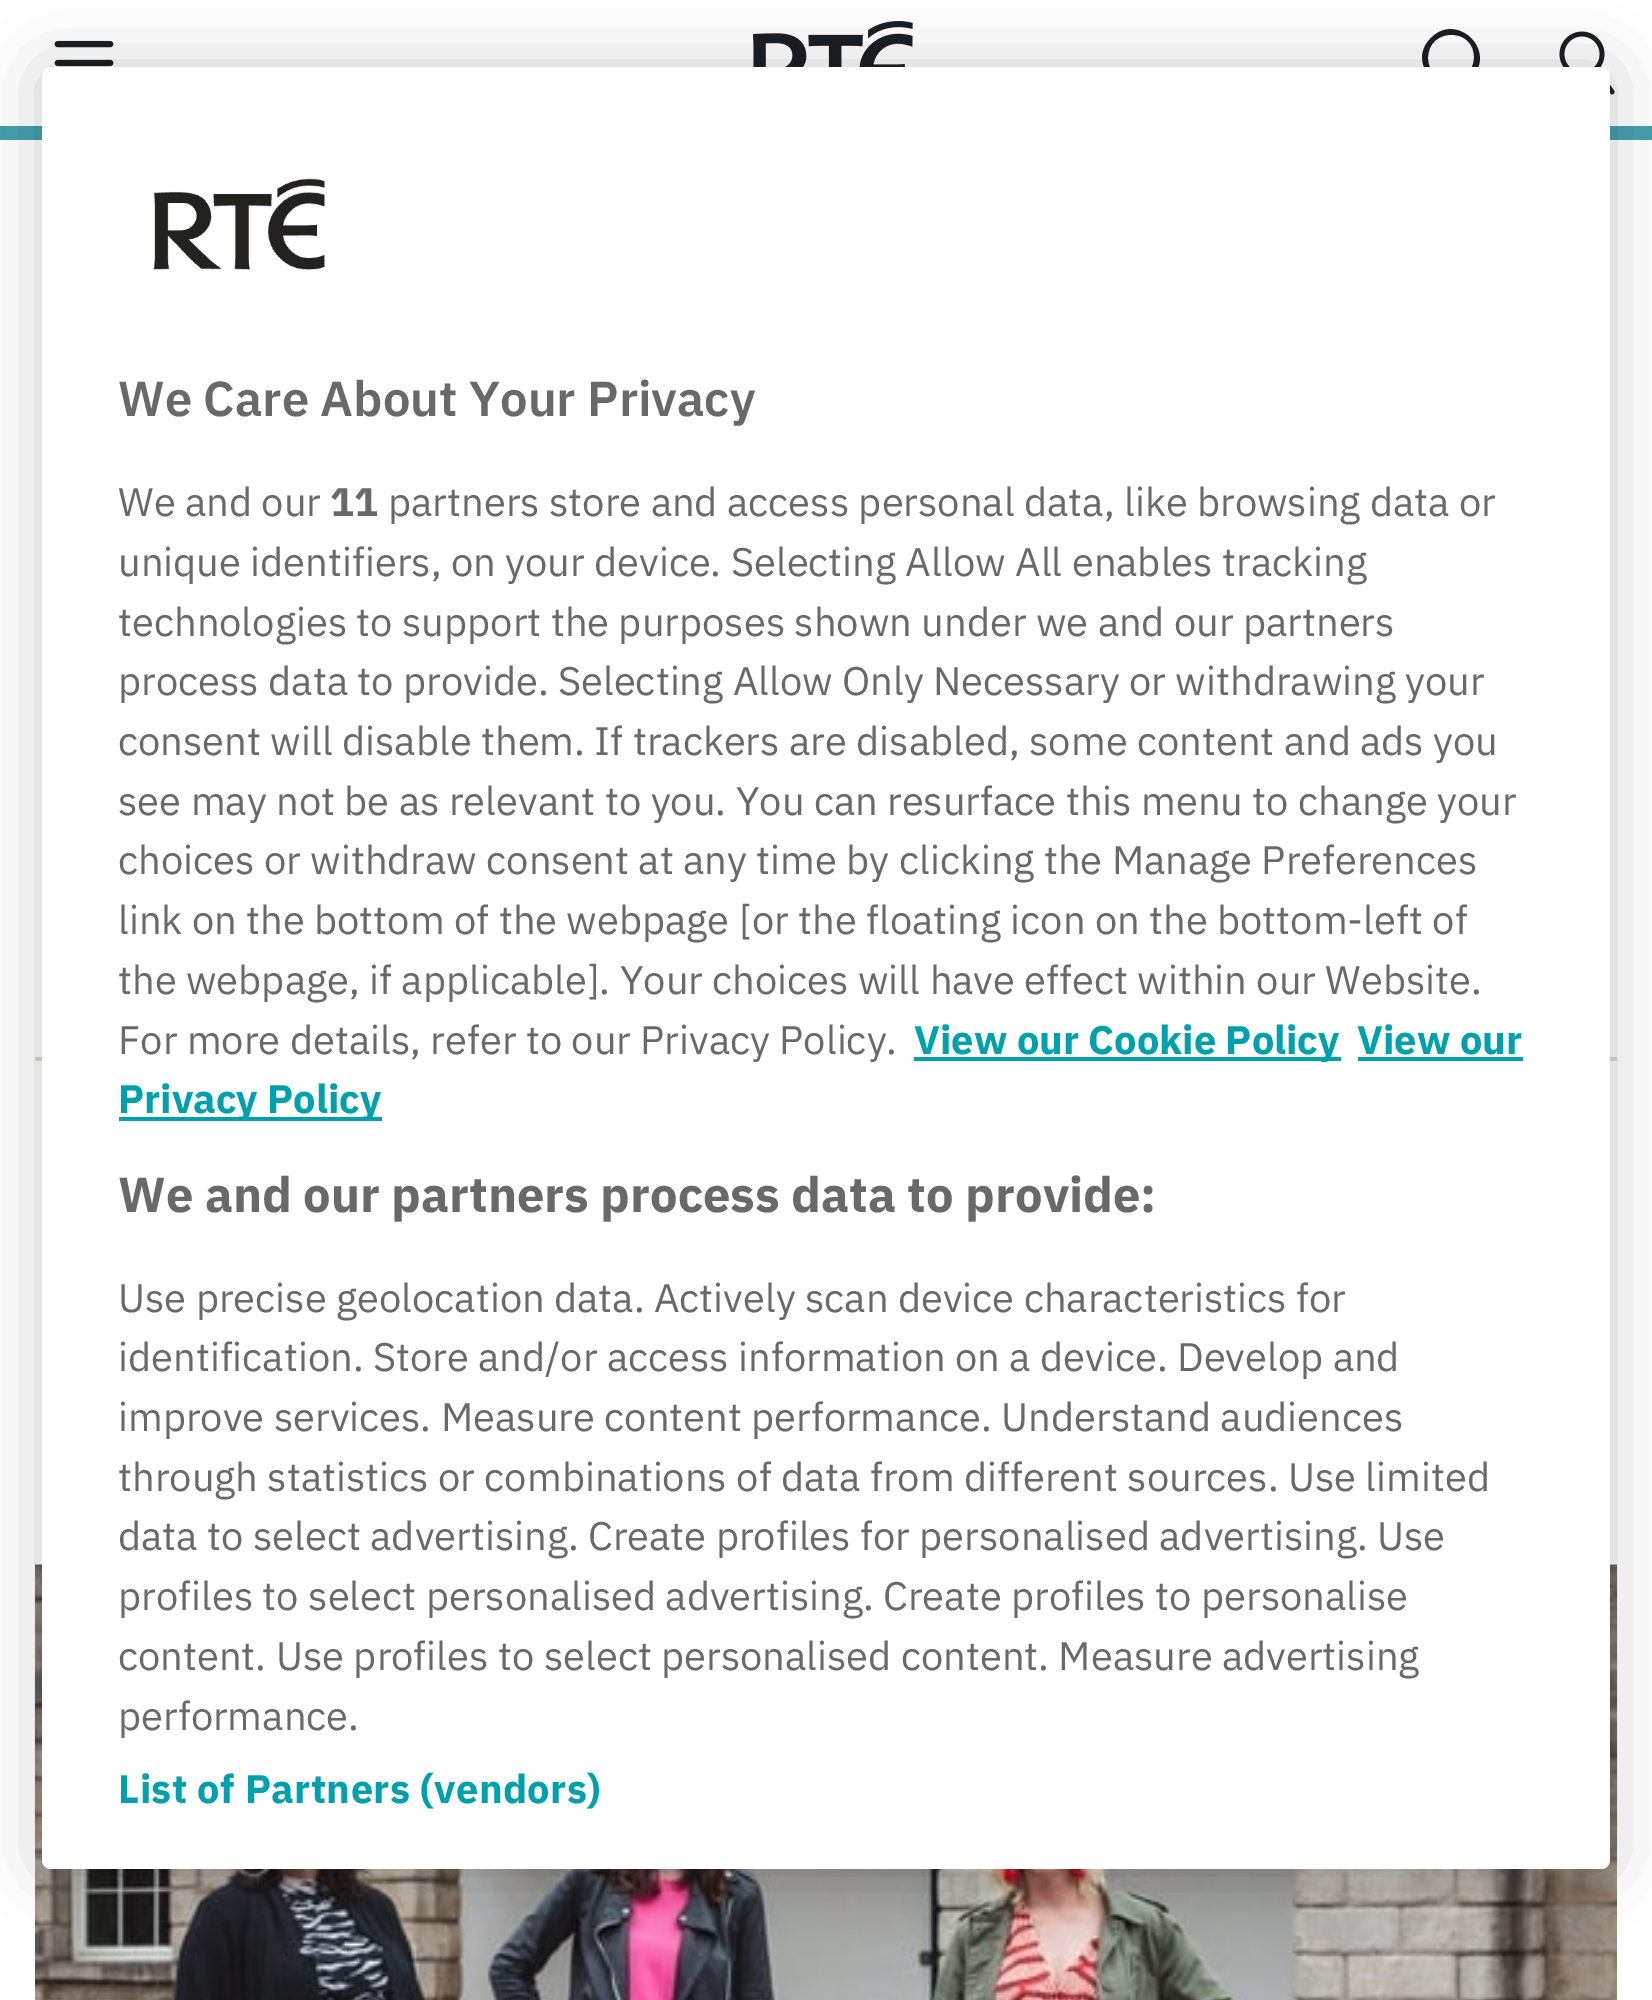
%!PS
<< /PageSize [1652 2000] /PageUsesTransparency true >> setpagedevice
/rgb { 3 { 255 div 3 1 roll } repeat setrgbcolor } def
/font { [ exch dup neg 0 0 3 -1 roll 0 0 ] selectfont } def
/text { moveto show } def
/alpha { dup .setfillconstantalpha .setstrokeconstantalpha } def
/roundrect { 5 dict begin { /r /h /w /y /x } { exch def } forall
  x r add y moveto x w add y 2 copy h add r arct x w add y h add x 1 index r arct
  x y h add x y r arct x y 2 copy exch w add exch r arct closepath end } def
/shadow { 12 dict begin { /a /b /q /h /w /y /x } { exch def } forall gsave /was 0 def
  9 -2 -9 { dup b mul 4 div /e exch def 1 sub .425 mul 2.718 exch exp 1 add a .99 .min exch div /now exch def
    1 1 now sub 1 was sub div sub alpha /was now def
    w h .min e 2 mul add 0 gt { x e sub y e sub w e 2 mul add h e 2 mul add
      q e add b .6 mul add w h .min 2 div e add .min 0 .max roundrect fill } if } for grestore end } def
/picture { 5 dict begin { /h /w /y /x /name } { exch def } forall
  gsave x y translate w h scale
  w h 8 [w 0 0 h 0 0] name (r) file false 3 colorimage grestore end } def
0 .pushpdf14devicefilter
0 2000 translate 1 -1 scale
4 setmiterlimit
255 255 255 rgb
0 0 1652 2000 rectfill
69 159 171 rgb
0 126 1652 14 rectfill
(img_01.rgb) 54 40 60 27 picture
(img_02.rgb) 753 21 160 46 picture
26 30 36 rgb
1489 92 moveto -16 -16 rlineto 23 -27 -17 -64 -42 -38 rcurveto -26 25 11 65 38 42 rcurveto 11 10 rlineto 1 2 4 7 7 7 rcurveto 2 -1 3 -3 2 -5 rcurveto closepath 1428 58 moveto 0 -31 47 -31 46 0 rcurveto -1 30 -46 30 -46 0 rcurveto closepath fill
(img_03.rgb) 1559 31 56 64 picture
219 217 212 rgb
35 1057 1582 4 rectfill
(img_05.rgb) 35 1564 1582 436 picture
0 0 0 rgb
42 67 1568 1802 9 31.5 0.2 shadow
255 255 255 rgb
42 67 1568 1802 9 roundrect fill
(img_04.rgb) 153 178 172 92 picture
0 161 173 rgb
914 1057 427 4 rectfill
1358 1057 165 4 rectfill
119 1117 263 4 rectfill
/IBMPlexSans-SemiBold 49 font
105 105 105 rgb
(We Care About Your Privacy) 118 416 text
/IBMPlexSans-Regular 39.85 font
(We and our) 118 516 text
/IBMPlexSans-Bold 39.85 font
(11) 330 516 text
/IBMPlexSans-Regular 39.85 font
(partners store and access personal data, like browsing data or) 388 516 text
(unique identifiers, on your device. Selecting Allow All enables tracking) 118 576 text
(technologies to support the purposes shown under we and our partners) 118 636 text
(process data to provide. Selecting Allow Only Necessary or withdrawing your) 118 695 text
(consent will disable them. If trackers are disabled, some content and ads you) 118 755 text
(see may not be as relevant to you. You can resurface this menu to change your) 118 815 text
(choices or withdraw consent at any time by clicking the Manage Preferences) 118 874 text
(link on the bottom of the webpage) 118 934 text
([or the floating icon on the bottom-left of) 739 934 text
(the webpage, if applicable]. Your choices will have effect within our Website.) 118 994 text
(For more details, refer to our Privacy Policy.) 118 1054 text
/IBMPlexSans-Bold 39.85 font
0 161 173 rgb
(View our Cookie Policy) 914 1054 text
(View our) 1357 1054 text
(Privacy Policy) 118 1113 text
/IBMPlexSans-Bold 49 font
105 105 105 rgb
(We and our partners process data to provide:) 118 1212 text
/IBMPlexSans-Regular 39.85 font
(Use precise geolocation data. Actively scan device characteristics for) 118 1312 text
(identification. Store and/or access information on a device. Develop and) 118 1371 text
(improve services. Measure content performance. Understand audiences) 118 1431 text
(through statistics or combinations of data from different sources. Use limited) 118 1491 text
(data to select advertising. Create profiles for personalised advertising. Use) 118 1550 text
(profiles to select personalised advertising. Create profiles to personalise) 118 1610 text
(content. Use profiles to select personalised content. Measure advertising) 118 1670 text
(performance.) 118 1730 text
/IBMPlexSans-Bold 39.85 font
0 161 173 rgb
118 1803 moveto 0.4 0 (List of Partners \(vendors\)) ashow
.poppdf14devicefilter showpage
